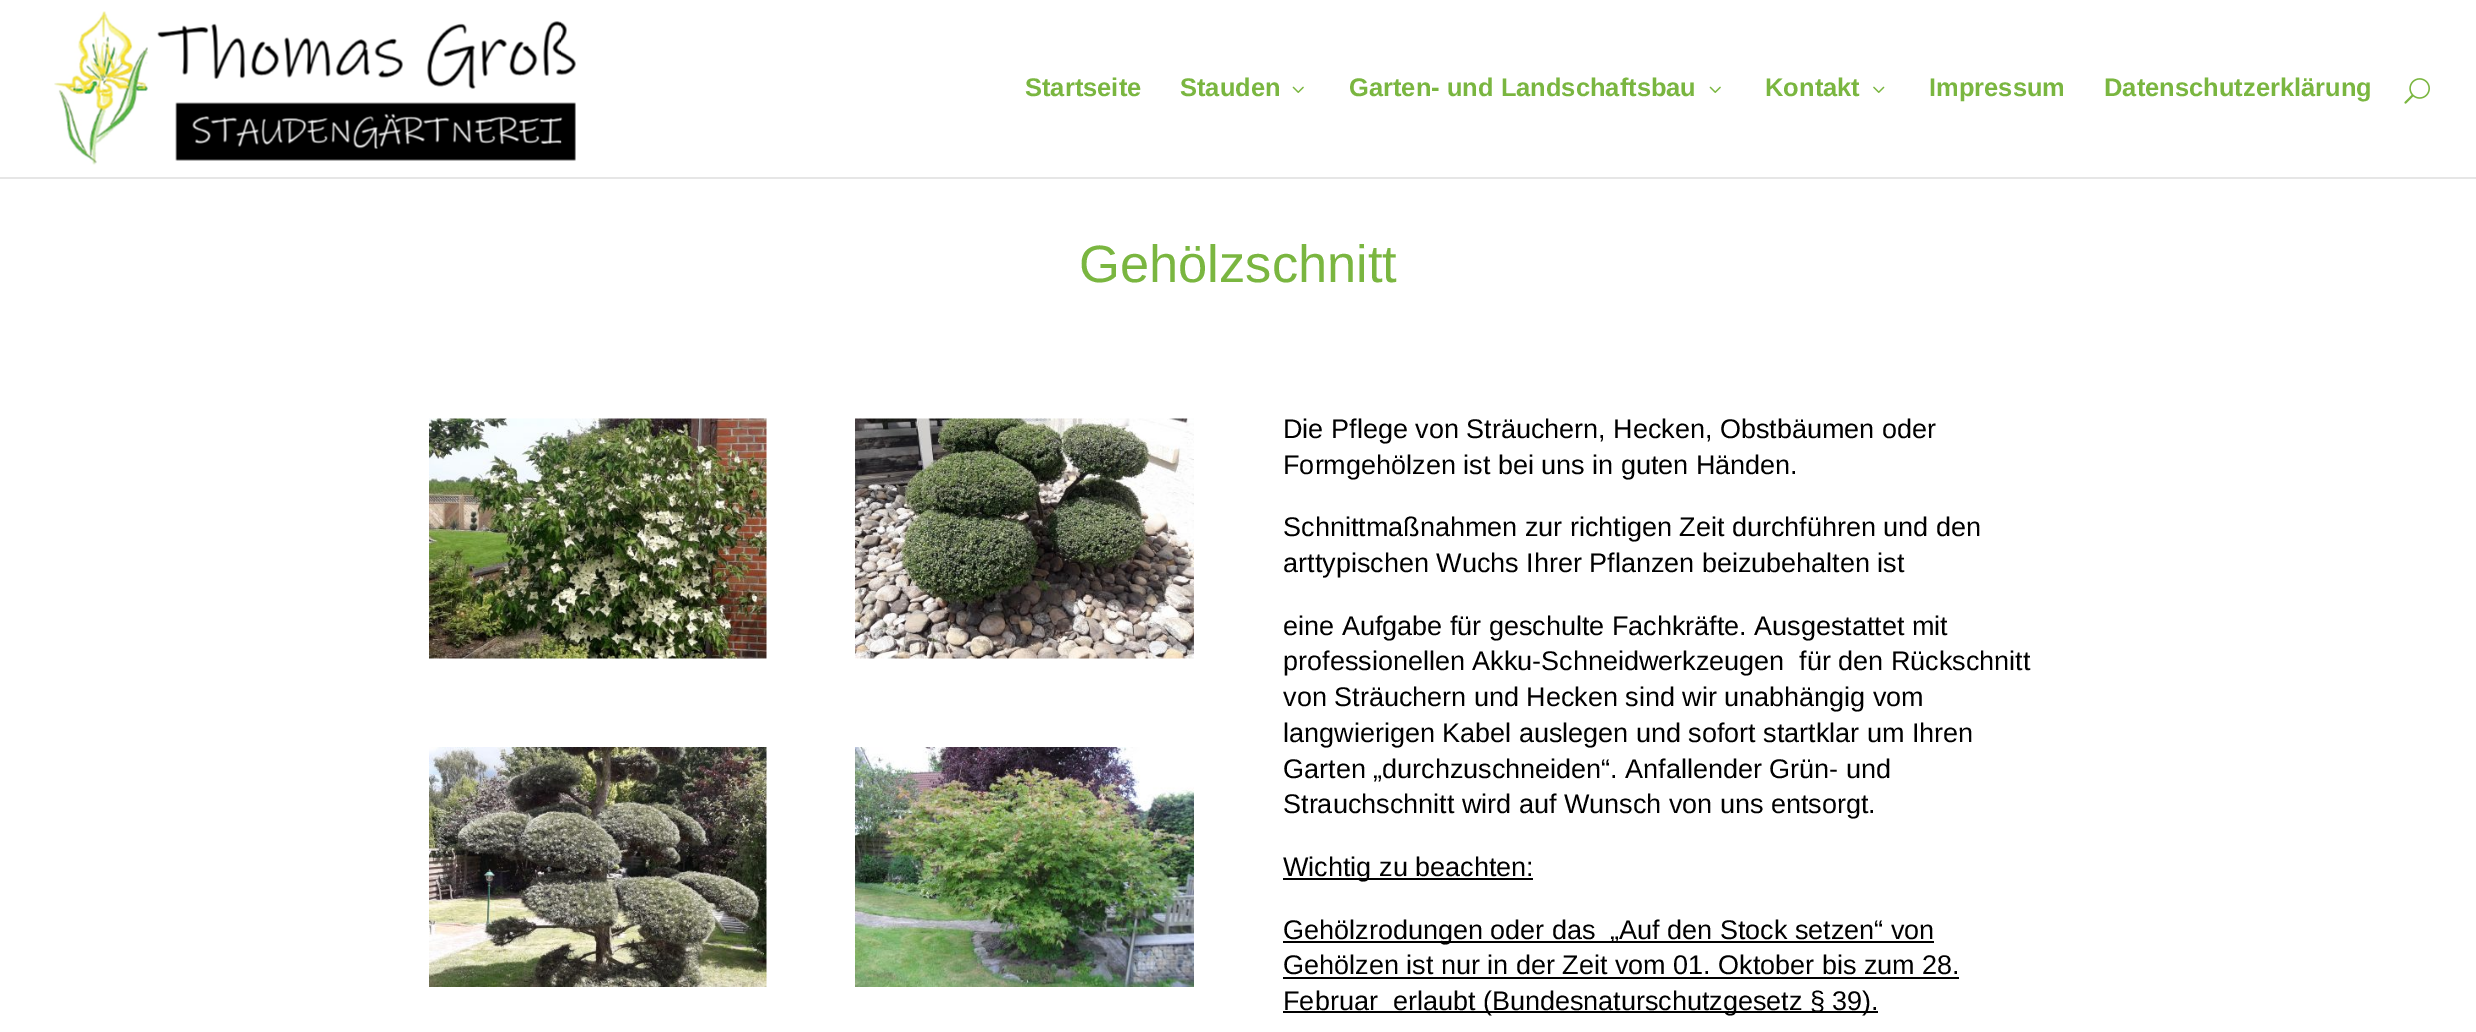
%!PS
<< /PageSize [2476 1032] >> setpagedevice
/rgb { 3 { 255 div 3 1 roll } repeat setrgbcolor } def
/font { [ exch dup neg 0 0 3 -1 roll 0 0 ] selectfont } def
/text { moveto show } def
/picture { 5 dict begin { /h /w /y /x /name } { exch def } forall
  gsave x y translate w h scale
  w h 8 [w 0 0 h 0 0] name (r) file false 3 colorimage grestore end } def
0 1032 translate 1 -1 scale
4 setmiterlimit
255 255 255 rgb
0 0 2476 1032 rectfill
230 230 230 rgb
0 177 moveto 0 2 rlineto 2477 0 rlineto 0 -177 rlineto -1 0 rlineto 0 175 rlineto closepath fill
(img_01.rgb) 54 11 522 154 picture
(img_02.rgb) 1292 86 12 7 picture
(img_02.rgb) 1709 86 12 7 picture
(img_03.rgb) 1873 86 12 7 picture
(img_04.rgb) 2404 78 26 26 picture
(img_05.rgb) 429 418 338 241 picture
(img_06.rgb) 855 418 339 241 picture
(img_07.rgb) 429 747 338 240 picture
(img_08.rgb) 855 747 339 240 picture
0 0 0 rgb
1283 878 250 2 rectfill
1283 941 651 2 rectfill
1283 977 676 2 rectfill
1283 1011 595 2 rectfill
/LiberationSans-Bold 25.5 font
122 182 64 rgb
(Startseite) 1025 96 text
(Stauden) 1180 96 text
(Garten- und Landschaftsbau) 1349 96 text
(Kontakt) 1765 96 text
(Impressum) 1929 96 text
(Datenschutzerklärung) 2104 96 text
/LiberationSans-Regular 52.5 font
(Gehölzschnitt) 1079 282 text
/LiberationSans-Regular 27 font
0 0 0 rgb
(Die Pflege von Sträuchern, Hecken, Obstbäumen oder) 1283 438 text
(Formgehölzen ist bei uns in guten Händen.) 1283 474 text
(Schnittmaßnahmen zur richtigen Zeit durchführen und den) 1283 536 text
(arttypischen Wuchs Ihrer Pflanzen beizubehalten ist) 1283 572 text
(eine Aufgabe für geschulte Fachkräfte. Ausgestattet mit) 1283 635 text
(professionellen Akku-Schneidwerkzeugen  für den Rückschnitt) 1283 670 text
(von Sträuchern und Hecken sind wir unabhängig vom) 1283 706 text
(langwierigen Kabel auslegen und sofort startklar um Ihren) 1283 742 text
(Garten „durchzuschneiden“. Anfallender Grün- und) 1283 778 text
(Strauchschnitt wird auf Wunsch von uns entsorgt.) 1283 813 text
(Wichtig zu beachten:) 1283 876 text
(Gehölzrodungen oder das  „Auf den Stock setzen“ von) 1283 939 text
(Gehölzen ist nur in der Zeit vom 01. Oktober bis zum 28.) 1283 974 text
(Februar  erlaubt \(Bundesnaturschutzgesetz § 39\).) 1283 1010 text
showpage
